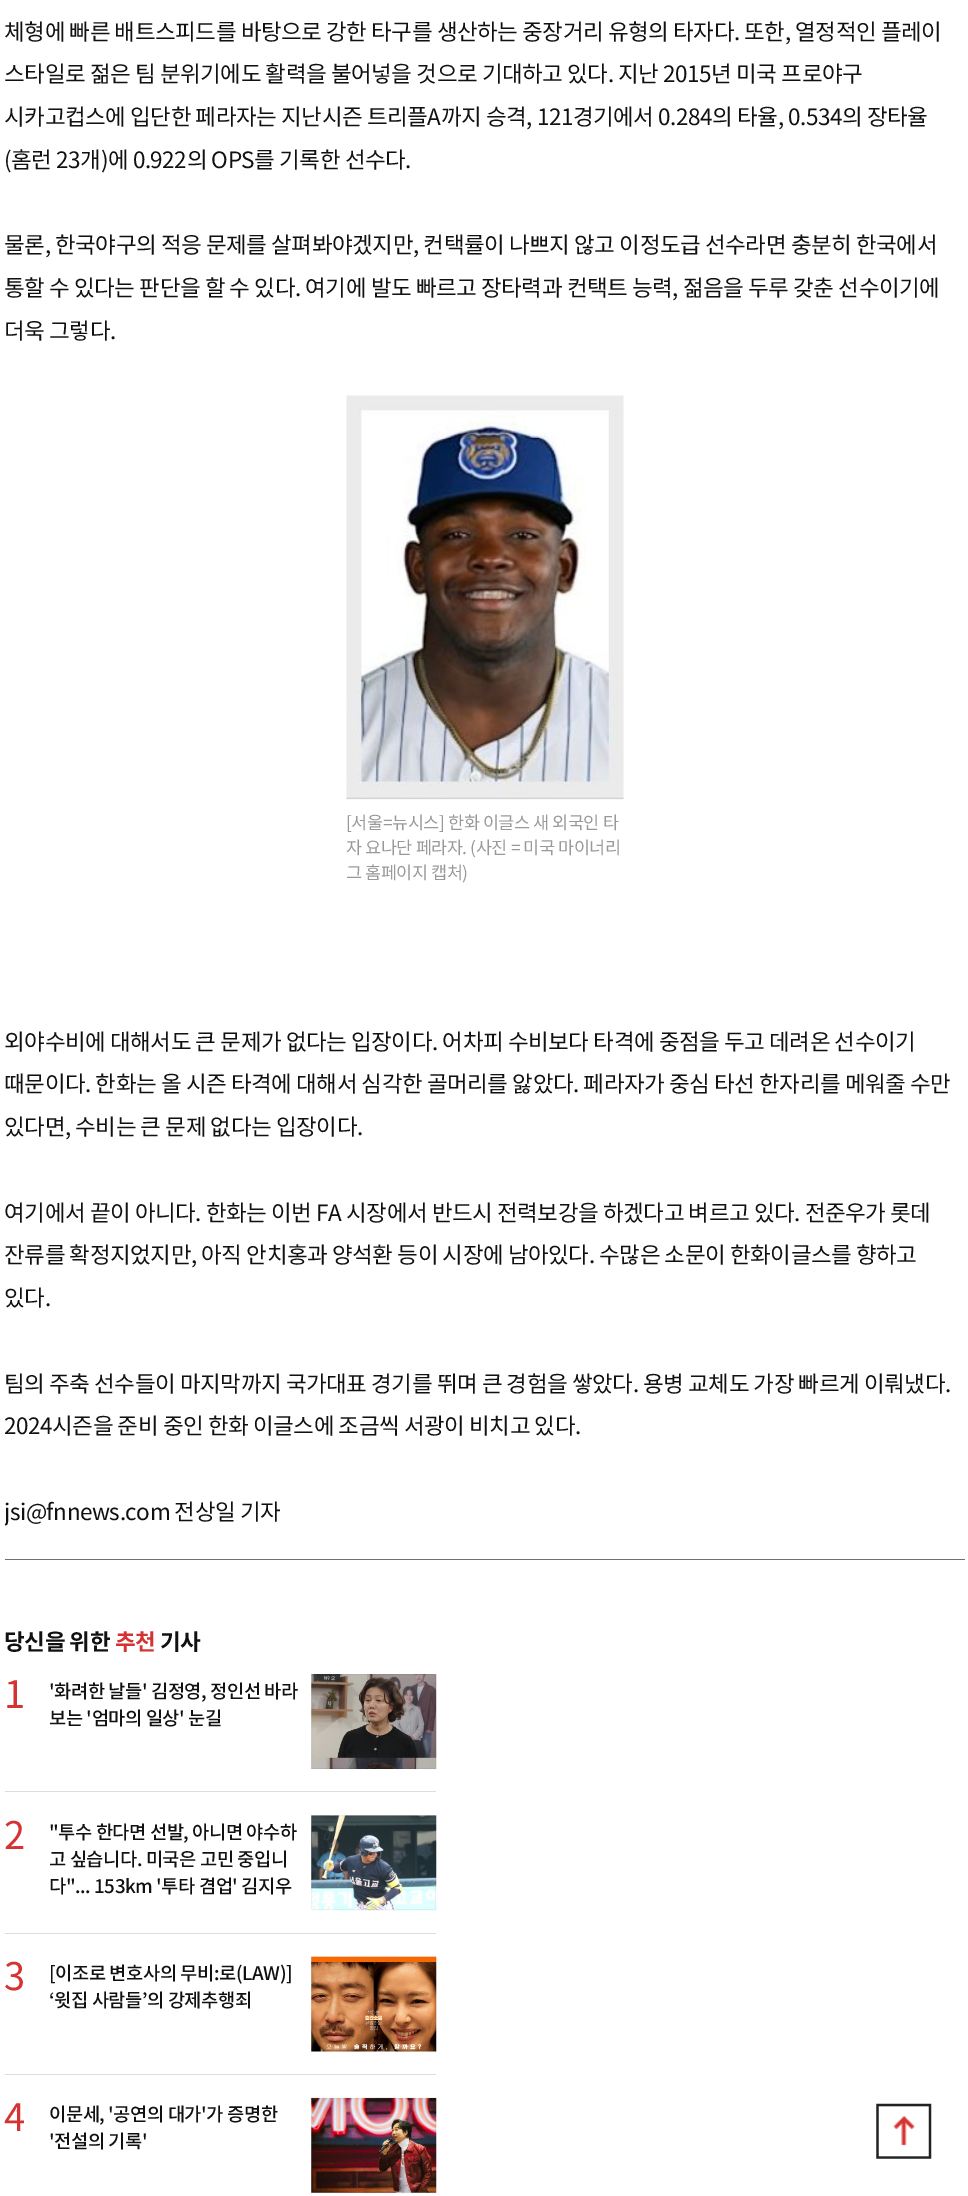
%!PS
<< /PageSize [968 2196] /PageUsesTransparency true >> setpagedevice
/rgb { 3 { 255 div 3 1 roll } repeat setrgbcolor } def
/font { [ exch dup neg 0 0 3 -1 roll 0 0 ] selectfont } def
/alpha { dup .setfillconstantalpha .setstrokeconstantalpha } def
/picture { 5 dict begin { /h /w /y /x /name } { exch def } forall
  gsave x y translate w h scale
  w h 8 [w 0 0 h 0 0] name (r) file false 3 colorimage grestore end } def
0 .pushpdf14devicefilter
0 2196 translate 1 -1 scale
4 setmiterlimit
255 255 255 rgb
0 0 968 2196 rectfill
112 112 112 rgb
5 1559 960 1 rectfill
(img_01.rgb) 346 395 278 405 picture
221 221 221 rgb
5 1791 431 1 rectfill
(img_02.rgb) 311 1674 126 95 picture
0.05 alpha
0 0 0 rgb
311.5 1674.5 124 94 rectstroke
1 alpha
221 221 221 rgb
5 1933 431 1 rectfill
(img_03.rgb) 311 1815 126 96 picture
0.05 alpha
0 0 0 rgb
311.5 1815.5 124 94 rectstroke
1 alpha
221 221 221 rgb
5 2074 431 1 rectfill
(img_04.rgb) 311 1956 126 96 picture
0.05 alpha
0 0 0 rgb
311.5 1956.5 124 94 rectstroke
1 alpha
(img_05.rgb) 311 2097 126 96 picture
0.05 alpha
311.5 2098.5 124 94 rectstroke
1 alpha
(img_06.rgb) 876 2103 56 56 picture
/NotoSansKR-Regular 22.5 font
17 17 17 rgb
4 40 moveto -0.45 0 (체형에 빠른 배트스피드를 바탕으로 강한 타구를 생산하는 중장거리 유형의 타자다. 또한, 열정적인 플레이) ashow
4 82 moveto -0.45 0 (스타일로 젊은 팀 분위기에도 활력을 불어넣을 것으로 기대하고 있다. 지난 2015년 미국 프로야구) ashow
4 125 moveto -0.45 0 (시카고컵스에 입단한 페라자는 지난시즌 트리플A까지 승격, 121경기에서 0.284의 타율, 0.534의 장타율) ashow
4 168 moveto -0.45 0 (\(홈런 23개\)에 0.922의 OPS를 기록한 선수다.) ashow
4 253 moveto -0.45 0 (물론, 한국야구의 적응 문제를 살펴봐야겠지만, 컨택률이 나쁘지 않고 이정도급 선수라면 충분히 한국에서) ashow
4 296 moveto -0.45 0 (통할 수 있다는 판단을 할 수 있다. 여기에 발도 빠르고 장타력과 컨택트 능력, 젊음을 두루 갖춘 선수이기에) ashow
4 339 moveto -0.45 0 (더욱 그렇다.) ashow
/NotoSansKR-Regular 17.5 font
153 153 153 rgb
346 829 moveto -0.45 0 ([서울=뉴시스] 한화 이글스 새 외국인 타) ashow
346 854 moveto -0.45 0 (자 요나단 페라자. \(사진 = 미국 마이너리) ashow
346 879 moveto -0.45 0 (그 홈페이지 캡처\)) ashow
/NotoSansKR-Regular 22.5 font
17 17 17 rgb
4 1050 moveto -0.45 0 (외야수비에 대해서도 큰 문제가 없다는 입장이다. 어차피 수비보다 타격에 중점을 두고 데려온 선수이기) ashow
4 1092 moveto -0.45 0 (때문이다. 한화는 올 시즌 타격에 대해서 심각한 골머리를 앓았다. 페라자가 중심 타선 한자리를 메워줄 수만) ashow
4 1135 moveto -0.45 0 (있다면, 수비는 큰 문제 없다는 입장이다.) ashow
4 1221 moveto -0.45 0 (여기에서 끝이 아니다. 한화는 이번 FA 시장에서 반드시 전력보강을 하겠다고 벼르고 있다. 전준우가 롯데) ashow
4 1263 moveto -0.45 0 (잔류를 확정지었지만, 아직 안치홍과 양석환 등이 시장에 남아있다. 수많은 소문이 한화이글스를 향하고) ashow
4 1306 moveto -0.45 0 (있다.) ashow
4 1392 moveto -0.45 0 (팀의 주축 선수들이 마지막까지 국가대표 경기를 뛰며 큰 경험을 쌓았다. 용병 교체도 가장 빠르게 이뤄냈다.) ashow
4 1434 moveto -0.45 0 (2024시즌을 준비 중인 한화 이글스에 조금씩 서광이 비치고 있다.) ashow
gsave
5 0 960 1580 rectclip
4 1520 moveto -0.45 0 (jsi@fnnews.com 전상일 기자) ashow
grestore
/NotoSansKR-Bold 22.5 font
4 1650 moveto -0.45 0 (당신을 위한) ashow
213 51 51 rgb
115 1650 moveto -0.45 0 (추천) ashow
17 17 17 rgb
160 1650 moveto -0.45 0 (기사) ashow
/NotoSansKR-Regular 38 font
213 51 51 rgb
4 1708 moveto -6 0 (1) ashow
/NotoSansKR-Medium 18.75 font
17 17 17 rgb
49 1698 moveto -0.45 0 ('화려한 날들' 김정영, 정인선 바라) ashow
49 1725 moveto -0.45 0 (보는 '엄마의 일상' 눈길) ashow
/NotoSansKR-Regular 38 font
213 51 51 rgb
4 1849 moveto -6 0 (2) ashow
/NotoSansKR-Medium 18.75 font
17 17 17 rgb
49 1839 moveto -0.45 0 ("투수 한다면 선발, 아니면 야수하) ashow
49 1866 moveto -0.45 0 (고 싶습니다. 미국은 고민 중입니) ashow
49 1893 moveto -0.45 0 (다"... 153km '투타 겸업' 김지우) ashow
/NotoSansKR-Regular 38 font
213 51 51 rgb
4 1990 moveto -6 0 (3) ashow
/NotoSansKR-Medium 18.75 font
17 17 17 rgb
49 1980 moveto -0.45 0 ([이조로 변호사의 무비:로\(LAW\)]) ashow
49 2007 moveto -0.45 0 (‘윗집 사람들’의 강제추행죄) ashow
/NotoSansKR-Regular 38 font
213 51 51 rgb
4 2131 moveto -6 0 (4) ashow
/NotoSansKR-Medium 18.75 font
17 17 17 rgb
49 2121 moveto -0.45 0 (이문세, '공연의 대가'가 증명한) ashow
49 2148 moveto -0.45 0 ('전설의 기록') ashow
.poppdf14devicefilter showpage
